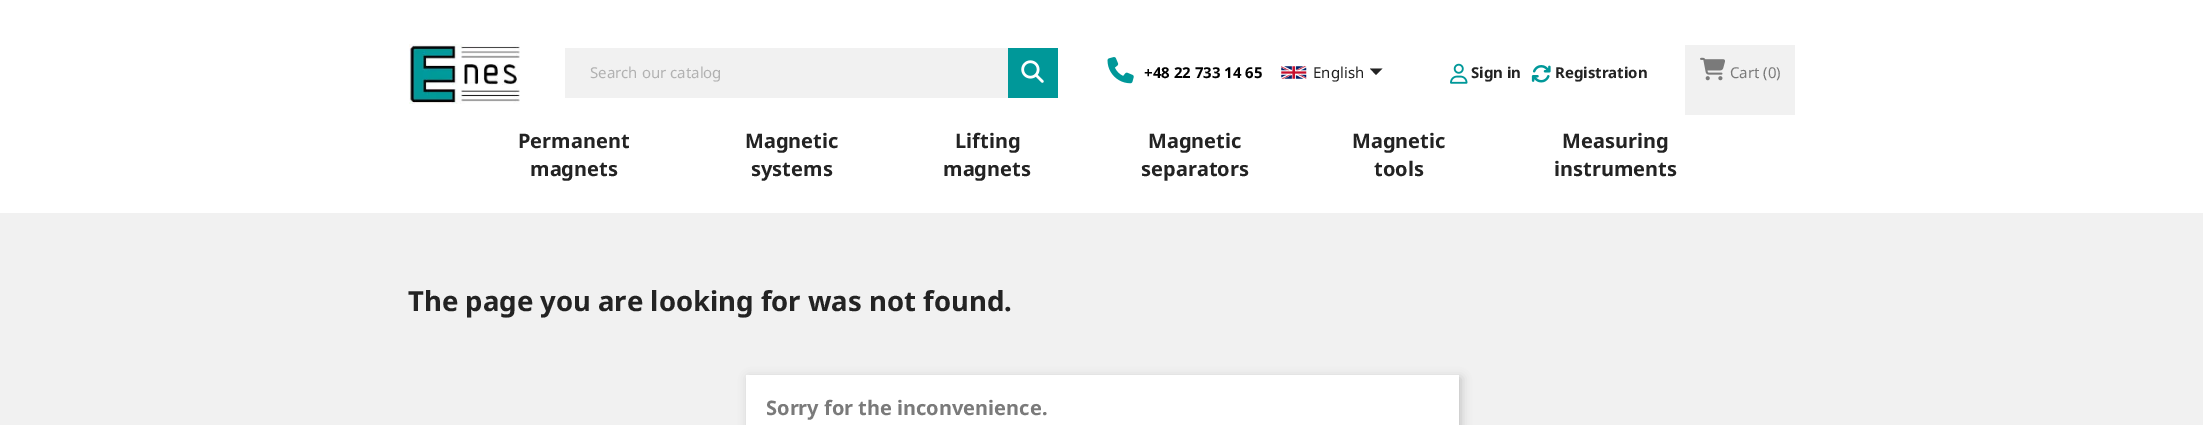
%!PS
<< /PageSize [2203 425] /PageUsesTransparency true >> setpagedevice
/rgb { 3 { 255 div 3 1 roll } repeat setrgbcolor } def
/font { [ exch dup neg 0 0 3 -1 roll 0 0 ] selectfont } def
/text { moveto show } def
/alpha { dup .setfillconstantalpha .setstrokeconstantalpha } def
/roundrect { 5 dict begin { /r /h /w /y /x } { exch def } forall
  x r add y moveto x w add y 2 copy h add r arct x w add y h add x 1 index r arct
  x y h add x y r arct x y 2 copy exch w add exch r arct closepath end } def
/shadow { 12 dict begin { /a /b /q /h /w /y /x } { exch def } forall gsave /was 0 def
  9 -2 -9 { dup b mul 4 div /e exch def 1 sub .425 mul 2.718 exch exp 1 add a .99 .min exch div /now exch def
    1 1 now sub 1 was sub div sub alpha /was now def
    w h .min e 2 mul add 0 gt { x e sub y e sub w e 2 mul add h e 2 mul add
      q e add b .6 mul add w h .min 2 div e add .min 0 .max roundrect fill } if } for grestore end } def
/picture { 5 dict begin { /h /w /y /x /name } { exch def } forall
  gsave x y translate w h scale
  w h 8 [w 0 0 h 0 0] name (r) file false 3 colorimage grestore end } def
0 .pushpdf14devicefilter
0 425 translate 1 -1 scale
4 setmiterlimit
255 255 255 rgb
0 0 2203 425 rectfill
(img_01.rgb) 409 44 111 60 picture
241 241 241 rgb
565 48 443 50 rectfill
0 152 153 rgb
1008 48 50 50 rectfill
(img_02.rgb) 1021 60 23 23 picture
(img_03.rgb) 1107 57 27 27 picture
(img_04.rgb) 1281 66 26 13 picture
35 35 35 rgb
1370 68.5 moveto 12.5 0 rlineto -6.5 6.5 rlineto closepath fill
(img_05.rgb) 1450 63 18 21 picture
(img_06.rgb) 1531 65 20 18 picture
241 241 241 rgb
1685 45 110 70 rectfill
(img_07.rgb) 1700 57 25 24 picture
0 213 2203 212 rectfill
0 0 0 rgb
749 378 712 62 0 5 0.2 shadow
255 255 255 rgb
746 375 713 50 rectfill
/NotoSans-Regular 15 font
177 177 177 rgb
(Search our catalog) 590 78 text
/NotoSans-Bold 15 font
0 0 0 rgb
(+48 22 733 14 65) 1144 78 text
/NotoSans-Regular 15 font
35 35 35 rgb
(English) 1313 78 text
/NotoSans-Bold 15 font
(Sign in) 1471 78 text
(Registration) 1555 78 text
/NotoSans-Regular 15 font
122 122 122 rgb
(Cart \(0\)) 1730 78 text
/NotoSans-Bold 20 font
35 35 35 rgb
(Permanent) 518 148 text
(magnets) 530 176 text
(Magnetic) 745 148 text
(systems) 751 176 text
(Lifting) 955 148 text
(magnets) 943 176 text
(Magnetic) 1148 148 text
(separators) 1141 176 text
(Magnetic) 1352 148 text
(tools) 1374 176 text
(Measuring) 1562 148 text
(instruments) 1554 176 text
/NotoSans-Bold 27.5 font
(The page you are looking for was not found.) 408 311 text
/NotoSans-Bold 20 font
122 122 122 rgb
(Sorry for the inconvenience.) 766 415 text
.poppdf14devicefilter showpage
